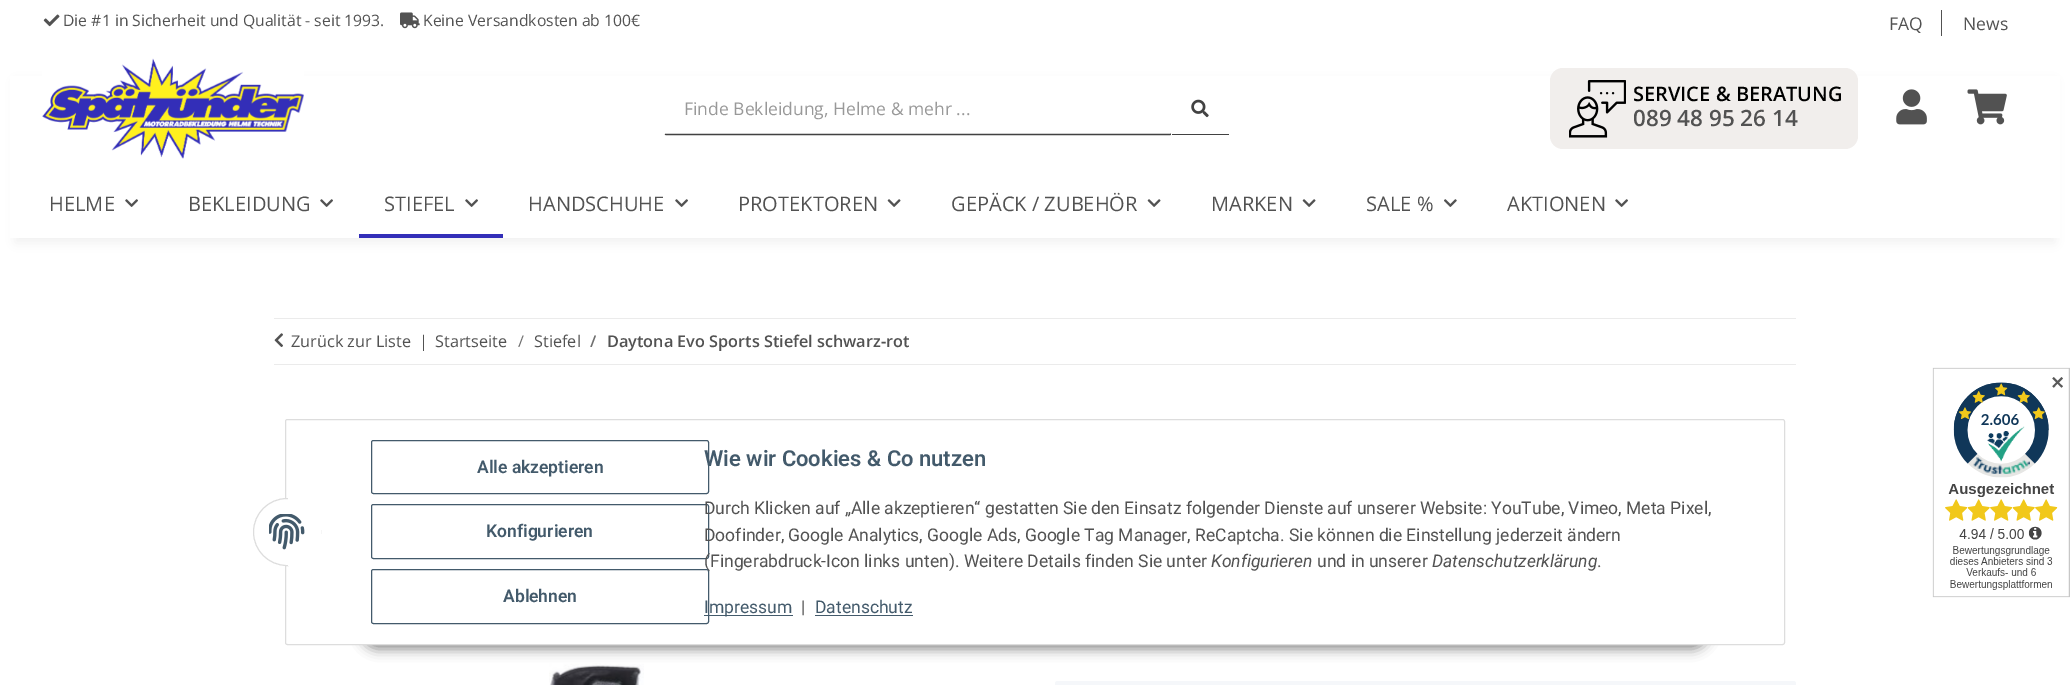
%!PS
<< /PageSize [2070 685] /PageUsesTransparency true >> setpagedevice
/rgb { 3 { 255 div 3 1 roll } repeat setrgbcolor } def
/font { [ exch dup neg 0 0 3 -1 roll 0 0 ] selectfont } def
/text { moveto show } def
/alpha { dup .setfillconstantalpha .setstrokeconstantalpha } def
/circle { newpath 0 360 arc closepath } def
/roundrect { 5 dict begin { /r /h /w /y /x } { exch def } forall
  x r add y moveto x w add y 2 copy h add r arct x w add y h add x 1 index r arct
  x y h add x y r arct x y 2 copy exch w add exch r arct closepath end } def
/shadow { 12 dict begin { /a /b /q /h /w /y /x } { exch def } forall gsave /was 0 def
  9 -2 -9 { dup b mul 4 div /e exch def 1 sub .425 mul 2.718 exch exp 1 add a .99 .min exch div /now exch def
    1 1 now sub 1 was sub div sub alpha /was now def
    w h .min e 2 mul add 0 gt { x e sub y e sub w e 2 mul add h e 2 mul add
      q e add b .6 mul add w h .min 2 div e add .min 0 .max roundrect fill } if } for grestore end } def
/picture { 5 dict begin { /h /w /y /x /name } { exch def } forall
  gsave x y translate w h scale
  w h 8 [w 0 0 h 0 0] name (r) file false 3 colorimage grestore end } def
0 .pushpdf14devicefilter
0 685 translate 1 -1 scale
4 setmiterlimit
255 255 255 rgb
0 0 2070 685 rectfill
(img_01.rgb) 43 14 17 13 picture
(img_02.rgb) 400 12 20 17 picture
82 82 82 rgb
1941 10 1 26 rectfill
0 0 0 rgb
15 81 2040 162 0 5.5 0.06 shadow
255 255 255 rgb
10 76 2050 162 rectfill
(img_03.rgb) 42 58 262 101 picture
66 66 66 rgb
1.2 setlinewidth
1171.5 134 moveto -1.5 0.5 rlineto -504 0 rlineto -1 -0.5 rlineto stroke
255 255 255 rgb
665 134 moveto -1.5 -1.5 -0.5 -30 -0.5 -34 rcurveto 0 -8 rlineto 0 -4 -1.5 -10 1.5 -10 rcurveto 504 0 rlineto 3.5 0 2 6 2 10 rcurveto 0 8 rlineto 0 4 1 32.5 -0.5 34 rcurveto stroke
66 66 66 rgb
1171 134 58 1 rectfill
255 255 255 rgb
1171 133 1 2 rectfill
(img_04.rgb) 1191 99 18 19 picture
241 238 236 rgb
1550 68 308 81 13 roundrect fill
(img_05.rgb) 1569 80 57 58 picture
(img_06.rgb) 1896 89 31 36 picture
(img_07.rgb) 1967 89 40 36 picture
(img_08.rgb) 125 199 13 8 picture
(img_08.rgb) 320 199 13 8 picture
(img_08.rgb) 465 199 13 8 picture
51 46 184 rgb
359 234 144 4 rectfill
(img_08.rgb) 675 199 13 8 picture
(img_09.rgb) 887 199 14 8 picture
(img_09.rgb) 1147 199 14 8 picture
(img_09.rgb) 1302 199 14 8 picture
(img_10.rgb) 1444 199 13 8 picture
(img_08.rgb) 1615 199 13 8 picture
235 235 235 rgb
274 318 1522 1 rectfill
274 364 1522 1 rectfill
(img_11.rgb) 274 333 9 14 picture
(img_12.rgb) 549 663 95 22 picture
245 247 250 rgb
1055 681 741 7 2.5 roundrect fill
(img_13.rgb) 1932 367 138 231 picture
0 0 0 rgb
361 609 1348 40 20 6 0.45 shadow
255 255 255 rgb
285.5 419.5 1499 225 2 roundrect gsave fill grestore
221 221 221 rgb
1 setlinewidth
stroke
255 255 255 rgb
287 532 33.5 circle gsave fill grestore
221 221 221 rgb
stroke
255 255 255 rgb
288 498 33 68 rectfill
(img_14.rgb) 269 514 36 36 picture
67 90 107 rgb
371.5 440.5 337 53 2 roundrect stroke
371.5 504.5 337 54 2 roundrect stroke
371.5 569.5 337 54 2 roundrect stroke
704 615 89 1 rectfill
815 615 98 1 rectfill
/OpenSans-Regular 15.75 font
82 82 82 rgb
(Die #1 in Sicherheit und Qualität - seit 1993.) 63 26 text
(Keine Versandkosten ab 100€) 423 26 text
/OpenSans-Regular 17.5 font
(FAQ) 1889 30 text
(News) 1963 30 text
153 153 153 rgb
(Finde Bekleidung, Helme & mehr ...) 684 115 text
/OpenSans-SemiBold 20 font
0 0 0 rgb
(SERVICE & BERATUNG) 1633 101 text
/OpenSans-SemiBold 22.5 font
82 82 82 rgb
(089 48 95 26 14) 1633 126 text
/OpenSans-Regular 20.1 font
(HELME) 49 211 text
(BEKLEIDUNG) 188 211 text
(STIEFEL) 384 211 text
(HANDSCHUHE) 528 211 text
(PROTEKTOREN) 738 211 text
(GEPÄCK / ZUBEHÖR) 951 211 text
(MARKEN) 1211 211 text
(SALE %) 1366 211 text
(AKTIONEN) 1507 211 text
/OpenSans-Regular 16.25 font
(Zurück zur Liste) 291 347 text
(|) 419 347 text
(Startseite) 435 347 text
112 112 112 rgb
(/) 518 347 text
82 82 82 rgb
(Stiefel) 534 347 text
/OpenSans-SemiBold 16.25 font
112 112 112 rgb
(/) 590 347 text
82 82 82 rgb
(Daytona Evo Sports Stiefel schwarz-rot) 607 347 text
/DejaVuSans-Bold 17.5 font
89 89 89 rgb
(✕) 2050 389 text
/Roboto-SemiBold 17.5 font
67 90 107 rgb
(Alle akzeptieren) 477 473 text
(Konfigurieren) 486 537 text
(Ablehnen) 503 602 text
/Roboto-SemiBold 22 font
(Wie wir Cookies & Co nutzen) 704 466 text
/Roboto-Regular 17.5 font
82 82 82 rgb
(Durch Klicken auf „Alle akzeptieren“ gestatten Sie den Einsatz folgender Dienste auf unserer Website: YouTube, Vimeo, Meta Pixel,) 704 514 text
(Doofinder, Google Analytics, Google Ads, Google Tag Manager, ReCaptcha. Sie können die Einstellung jederzeit ändern) 704 541 text
(\(Fingerabdruck-Icon links unten\). Weitere Details finden Sie unter) 704 567 text
/Roboto-Italic 17.5 font
(Konfigurieren) 1211 567 text
/Roboto-Regular 17.5 font
(und in unserer) 1317 567 text
/Roboto-Italic 17.5 font
(Datenschutzerklärung) 1432 567 text
/Roboto-Regular 17.5 font
(.) 1597 567 text
67 90 107 rgb
(Impressum) 704 613 text
82 82 82 rgb
(|) 801 613 text
67 90 107 rgb
(Datenschutz) 815 613 text
.poppdf14devicefilter showpage
